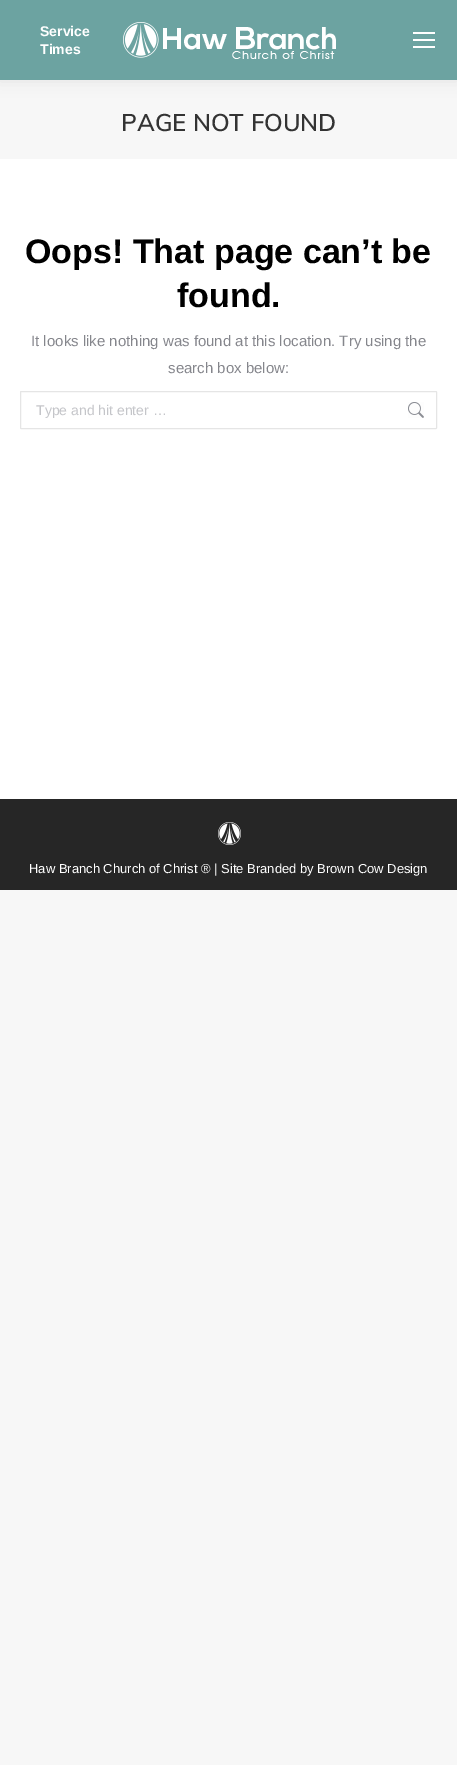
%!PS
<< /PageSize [457 1765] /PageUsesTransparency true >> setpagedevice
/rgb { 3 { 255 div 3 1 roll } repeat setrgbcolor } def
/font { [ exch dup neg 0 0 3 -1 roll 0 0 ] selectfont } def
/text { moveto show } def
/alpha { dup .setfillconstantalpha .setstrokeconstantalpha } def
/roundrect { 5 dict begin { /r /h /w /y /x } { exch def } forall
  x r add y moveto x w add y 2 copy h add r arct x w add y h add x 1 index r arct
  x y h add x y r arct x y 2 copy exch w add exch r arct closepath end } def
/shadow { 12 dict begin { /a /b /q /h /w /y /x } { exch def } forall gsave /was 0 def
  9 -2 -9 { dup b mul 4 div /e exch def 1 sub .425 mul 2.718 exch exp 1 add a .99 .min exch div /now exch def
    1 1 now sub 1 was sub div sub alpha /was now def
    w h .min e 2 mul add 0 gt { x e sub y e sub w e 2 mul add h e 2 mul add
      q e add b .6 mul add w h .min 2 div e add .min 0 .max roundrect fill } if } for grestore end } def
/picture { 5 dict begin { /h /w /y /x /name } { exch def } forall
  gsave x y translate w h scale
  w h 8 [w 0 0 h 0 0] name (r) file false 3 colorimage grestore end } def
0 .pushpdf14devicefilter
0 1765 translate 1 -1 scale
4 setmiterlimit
247 247 247 rgb
0 0 457 1765 rectfill
255 255 255 rgb
0 159 457 640 rectfill
0 0 0 rgb
-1 -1 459 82 0 7.5 0.07 shadow
108 163 161 rgb
0 0 457 80 rectfill
(img_01.rgb) 123 22 213 37 picture
255 255 255 rgb
413 32 22 2 rectfill
413 39 22 2 rectfill
413 46 22 2 rectfill
229 229 229 rgb
20.5 391.5 416 37 0.5 roundrect stroke
(img_02.rgb) 408 402 16 16 picture
38 38 38 rgb
0 799 457 91 rectfill
(img_03.rgb) 218 822 23 23 picture
/LiberationSans-Bold 14 font
255 255 255 rgb
(Service) 40 36 text
(Times) 40 54 text
/Muli-SemiBold 24 font
51 51 51 rgb
(PAGE NOT FOUND) 121 131 text
/LiberationSans-Bold 34 font
0 0 0 rgb
(Oops! That page can’t be) 25 263 text
(found.) 177 307 text
/LiberationSans-Regular 15 font
133 134 140 rgb
(It looks like nothing was found at this location. Try using the) 31 346 text
(search box below:) 168 373 text
/LiberationSans-Regular 14 font
196 197 201 rgb
(Type and hit enter …) 36 415 text
/LiberationSans-Regular 13 font
255 255 255 rgb
(Haw Branch Church of Christ ® | Site Branded by Brown Cow Design) 29 873 text
.poppdf14devicefilter showpage
